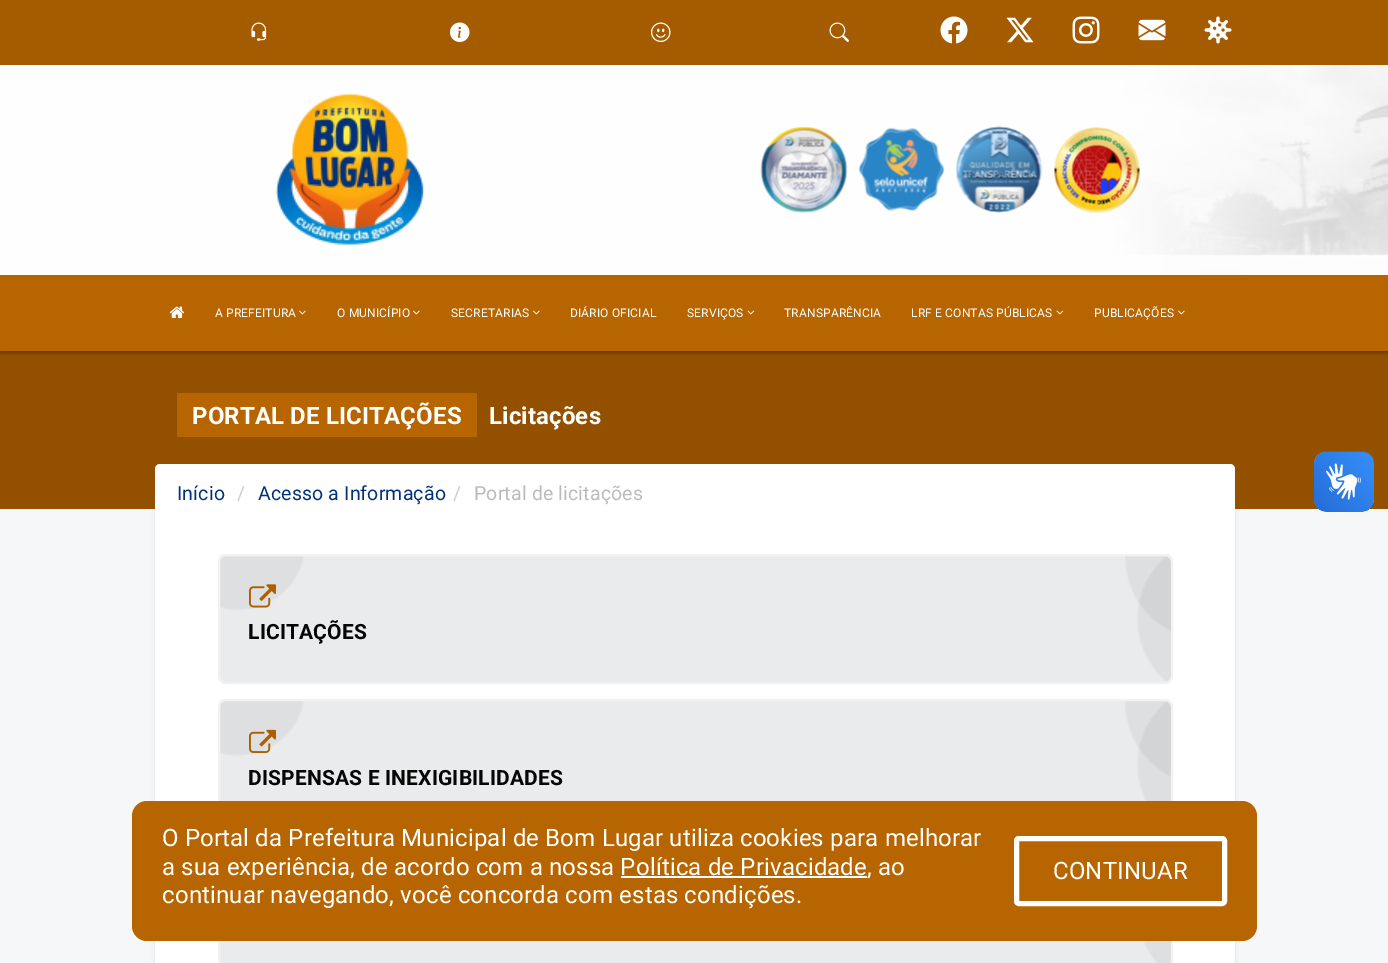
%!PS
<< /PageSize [1388 963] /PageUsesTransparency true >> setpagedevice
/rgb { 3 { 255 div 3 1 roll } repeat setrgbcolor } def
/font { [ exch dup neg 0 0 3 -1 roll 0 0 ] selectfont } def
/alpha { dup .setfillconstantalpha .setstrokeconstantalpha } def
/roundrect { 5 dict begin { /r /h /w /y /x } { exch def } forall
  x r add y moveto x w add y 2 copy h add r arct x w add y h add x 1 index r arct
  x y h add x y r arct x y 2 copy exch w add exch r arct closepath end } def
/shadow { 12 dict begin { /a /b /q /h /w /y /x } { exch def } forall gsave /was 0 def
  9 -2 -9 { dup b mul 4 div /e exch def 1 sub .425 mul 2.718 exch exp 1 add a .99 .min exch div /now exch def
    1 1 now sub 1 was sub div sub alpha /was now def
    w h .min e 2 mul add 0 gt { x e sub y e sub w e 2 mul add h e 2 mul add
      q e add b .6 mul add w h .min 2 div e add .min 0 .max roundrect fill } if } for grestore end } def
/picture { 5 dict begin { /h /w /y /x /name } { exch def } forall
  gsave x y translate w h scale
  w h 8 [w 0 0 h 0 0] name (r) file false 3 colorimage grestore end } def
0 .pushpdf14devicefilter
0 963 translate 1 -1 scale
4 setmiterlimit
246 247 248 rgb
0 0 1388 963 rectfill
3 0 71 rgb
155 465 1080 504 0 2 0.09 shadow
147 81 0 rgb
0 351 1388 158 rectfill
0 0 0 rgb
0 2 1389 351 0 1.5 0.3 shadow
(img_01.rgb) 0 65 1388 210 picture
165 91 0 rgb
0 0 1388 65 rectfill
(img_02.rgb) 251 22 16 19 picture
(img_03.rgb) 450 22 20 20 picture
(img_04.rgb) 651 22 20 20 picture
(img_05.rgb) 829 22 20 20 picture
(img_06.rgb) 940 16 28 28 picture
(img_07.rgb) 1006 17 28 26 picture
(img_08.rgb) 1072 16 28 28 picture
(img_09.rgb) 1138 19 28 22 picture
(img_10.rgb) 1204 16 28 28 picture
(img_11.rgb) 275 94 149 151 picture
(img_12.rgb) 760 126 88 87 picture
(img_13.rgb) 858 127 87 84 picture
(img_14.rgb) 955 126 88 87 picture
(img_15.rgb) 1054 127 86 86 picture
183 101 0 rgb
0 275 1388 76 rectfill
(img_16.rgb) 169 306 16 12 picture
(img_17.rgb) 299 310 7 5 picture
(img_17.rgb) 413 310 7 5 picture
(img_17.rgb) 533 310 7 5 picture
(img_18.rgb) 747 310 8 5 picture
(img_18.rgb) 1056 310 8 5 picture
(img_17.rgb) 1178 310 7 5 picture
177 393 300 44 rectfill
255 255 255 rgb
155 519 1080 444 rectfill
155 464 1080 60 5 roundrect fill
234 235 236 rgb
218 554 955 130 8 roundrect fill
(img_19.rgb) 219 554 953 129 picture
242 242 242 rgb
2 setlinewidth
219 555 953 128 7 roundrect stroke
(img_20.rgb) 249 584 27 24 picture
234 235 236 rgb
218 699 955 131 8 roundrect fill
(img_21.rgb) 219 699 953 102 picture
242 242 242 rgb
219 700 953 129 7 roundrect stroke
(img_22.rgb) 249 729 27 24 picture
234 235 236 rgb
220 941 951 22 rectfill
(img_23.rgb) 1144 941 27 22 picture
242 242 242 rgb
219 846 953 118 rectstroke
(img_24.rgb) 1314 451 60 61 picture
(img_25.rgb) 1314 452 60 60 picture
183 101 0 rgb
132 801 1125 140 15 roundrect fill
255 255 255 rgb
621 876 246 2 rectfill
5 setlinewidth
1016.5 838.5 208 65 2.5 roundrect stroke
/Roboto-Regular 12 font
215 317 moveto 0.15 0 (A PREFEITURA) ashow
337 317 moveto 0.15 0 (O MUNICÍPIO) ashow
451 317 moveto 0.15 0 (SECRETARIAS) ashow
570 317 moveto 0.15 0 (DIÁRIO OFICIAL) ashow
687 317 moveto 0.15 0 (SERVIÇOS) ashow
784 317 moveto 0.15 0 (TRANSPARÊNCIA) ashow
911 317 moveto 0.15 0 (LRF E CONTAS PÚBLICAS) ashow
1094 317 moveto 0.15 0 (PUBLICAÇÕES) ashow
/Roboto-Bold 24 font
192 424 moveto 0.15 0 (PORTAL DE LICITAÇÕES) ashow
489 424 moveto 0.15 0 (Licitações) ashow
/Roboto-Regular 19.5 font
3 50 122 rgb
177 500 moveto 0.15 0 (Início) ashow
204 204 204 rgb
237 500 moveto 0.15 0 (/) ashow
3 50 122 rgb
258 500 moveto 0.15 0 (Acesso a Informação) ashow
204 204 204 rgb
453 500 moveto 0.15 0 (/) ashow
187 187 187 rgb
474 500 moveto 0.15 0 (Portal de licitações) ashow
/Roboto-Bold 21 font
6 6 6 rgb
248 639 moveto 0.15 0 (LICITAÇÕES) ashow
248 785 moveto 0.15 0 (DISPENSAS E INEXIGIBILIDADES) ashow
/Roboto-Regular 24 font
255 255 255 rgb
162 846 moveto 0.15 0 (O Portal da Prefeitura Municipal de Bom Lugar utiliza cookies para melhorar) ashow
162 875 moveto 0.15 0 (a sua experiência, de acordo com a nossa Política de Privacidade, ao) ashow
162 903 moveto 0.15 0 (continuar navegando, você concorda com estas condições.) ashow
1053 879 moveto 0.15 0 (CONTINUAR) ashow
.poppdf14devicefilter showpage
